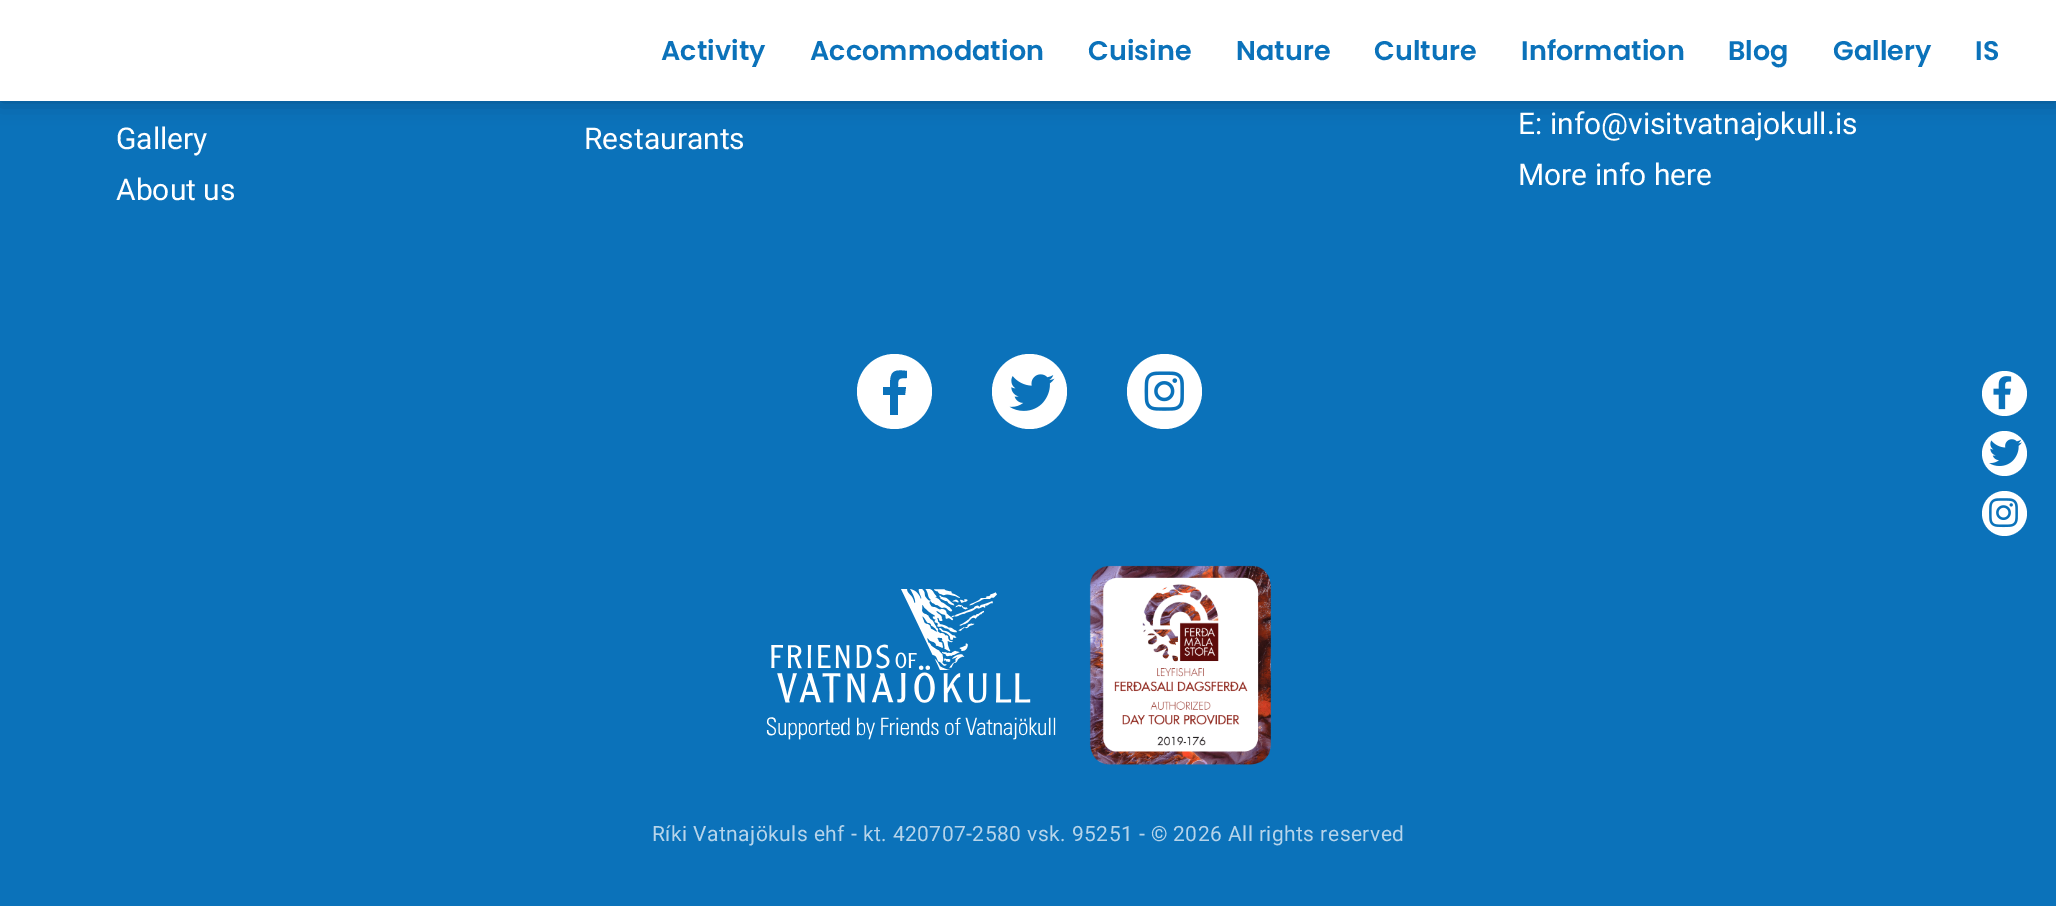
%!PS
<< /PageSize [2056 906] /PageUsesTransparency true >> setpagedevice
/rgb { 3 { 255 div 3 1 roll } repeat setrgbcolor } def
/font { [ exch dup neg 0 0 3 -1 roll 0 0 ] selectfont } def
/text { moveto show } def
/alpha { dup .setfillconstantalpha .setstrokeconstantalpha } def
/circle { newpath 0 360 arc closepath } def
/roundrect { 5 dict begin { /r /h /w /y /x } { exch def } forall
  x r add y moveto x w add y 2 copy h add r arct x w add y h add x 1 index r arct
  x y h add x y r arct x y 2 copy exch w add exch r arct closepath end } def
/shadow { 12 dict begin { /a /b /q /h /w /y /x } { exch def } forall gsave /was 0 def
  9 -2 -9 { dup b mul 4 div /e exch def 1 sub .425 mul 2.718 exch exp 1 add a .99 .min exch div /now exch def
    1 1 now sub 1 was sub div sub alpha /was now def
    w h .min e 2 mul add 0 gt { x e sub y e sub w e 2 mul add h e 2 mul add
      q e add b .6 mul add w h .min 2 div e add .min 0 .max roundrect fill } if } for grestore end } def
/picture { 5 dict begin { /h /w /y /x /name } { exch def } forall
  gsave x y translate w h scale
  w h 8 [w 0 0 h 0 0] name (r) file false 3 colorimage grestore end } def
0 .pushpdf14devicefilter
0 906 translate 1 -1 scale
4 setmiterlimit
11 114 186 rgb
0 0 2056 906 rectfill
0 0 0 rgb
0 0 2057 101 0 11 0.3 shadow
255 255 255 rgb
0 0 2056 101 rectfill
894.5 391.5 37.5 circle fill
11 114 186 rgb
905 395 moveto -7 0 rlineto 0 20 rlineto -8 0 rlineto 0 -20 rlineto -7 0 rlineto 0 -8 rlineto 7 0 rlineto 0 -15 2 -18 17 -16 rcurveto 0 7 rlineto -9 0 -9 1 -9 9 rcurveto 8 0 rlineto closepath fill
255 255 255 rgb
1029.5 391.5 37.5 circle fill
(img_01.rgb) 1009 374 46 37 picture
1164.5 391.5 37.5 circle fill
(img_02.rgb) 1144 371 40 40 picture
(img_03.rgb) 766 589 290 151 picture
(img_04.rgb) 1089 565 182 200 picture
2004.5 393.5 22.5 circle fill
(img_05.rgb) 1993 376 19 34 picture
2004.5 453.5 22.5 circle fill
(img_06.rgb) 1989 439 33 27 picture
2004.5 513.5 22.5 circle fill
(img_07.rgb) 1989 498 29 30 picture
/Poppins-SemiBold 27 font
11 114 186 rgb
661 60 moveto 0.1 0 (Activity) ashow
810 60 moveto 0.1 0 (Accommodation) ashow
1088 60 moveto 0.1 0 (Cuisine) ashow
1236 60 moveto 0.1 0 (Nature) ashow
1374 60 moveto 0.1 0 (Culture) ashow
1521 60 moveto 0.1 0 (Information) ashow
1728 60 moveto 0.1 0 (Blog) ashow
1833 60 moveto 0.1 0 (Gallery) ashow
1975 60 moveto 0.1 0 (IS) ashow
/Roboto-Regular 30 font
255 255 255 rgb
(Gallery) 116 149 text
(About us) 116 200 text
(Restaurants) 584 149 text
(E: info@visitvatnajokull.is) 1518 134 text
(More info here) 1518 185 text
/Roboto-Regular 21 font
182 212 234 rgb
652 841 moveto 0.45 0 (Ríki Vatnajökuls ehf - kt. 420707-2580 vsk. 95251 - © 2026 All rights reserved) ashow
.poppdf14devicefilter showpage
